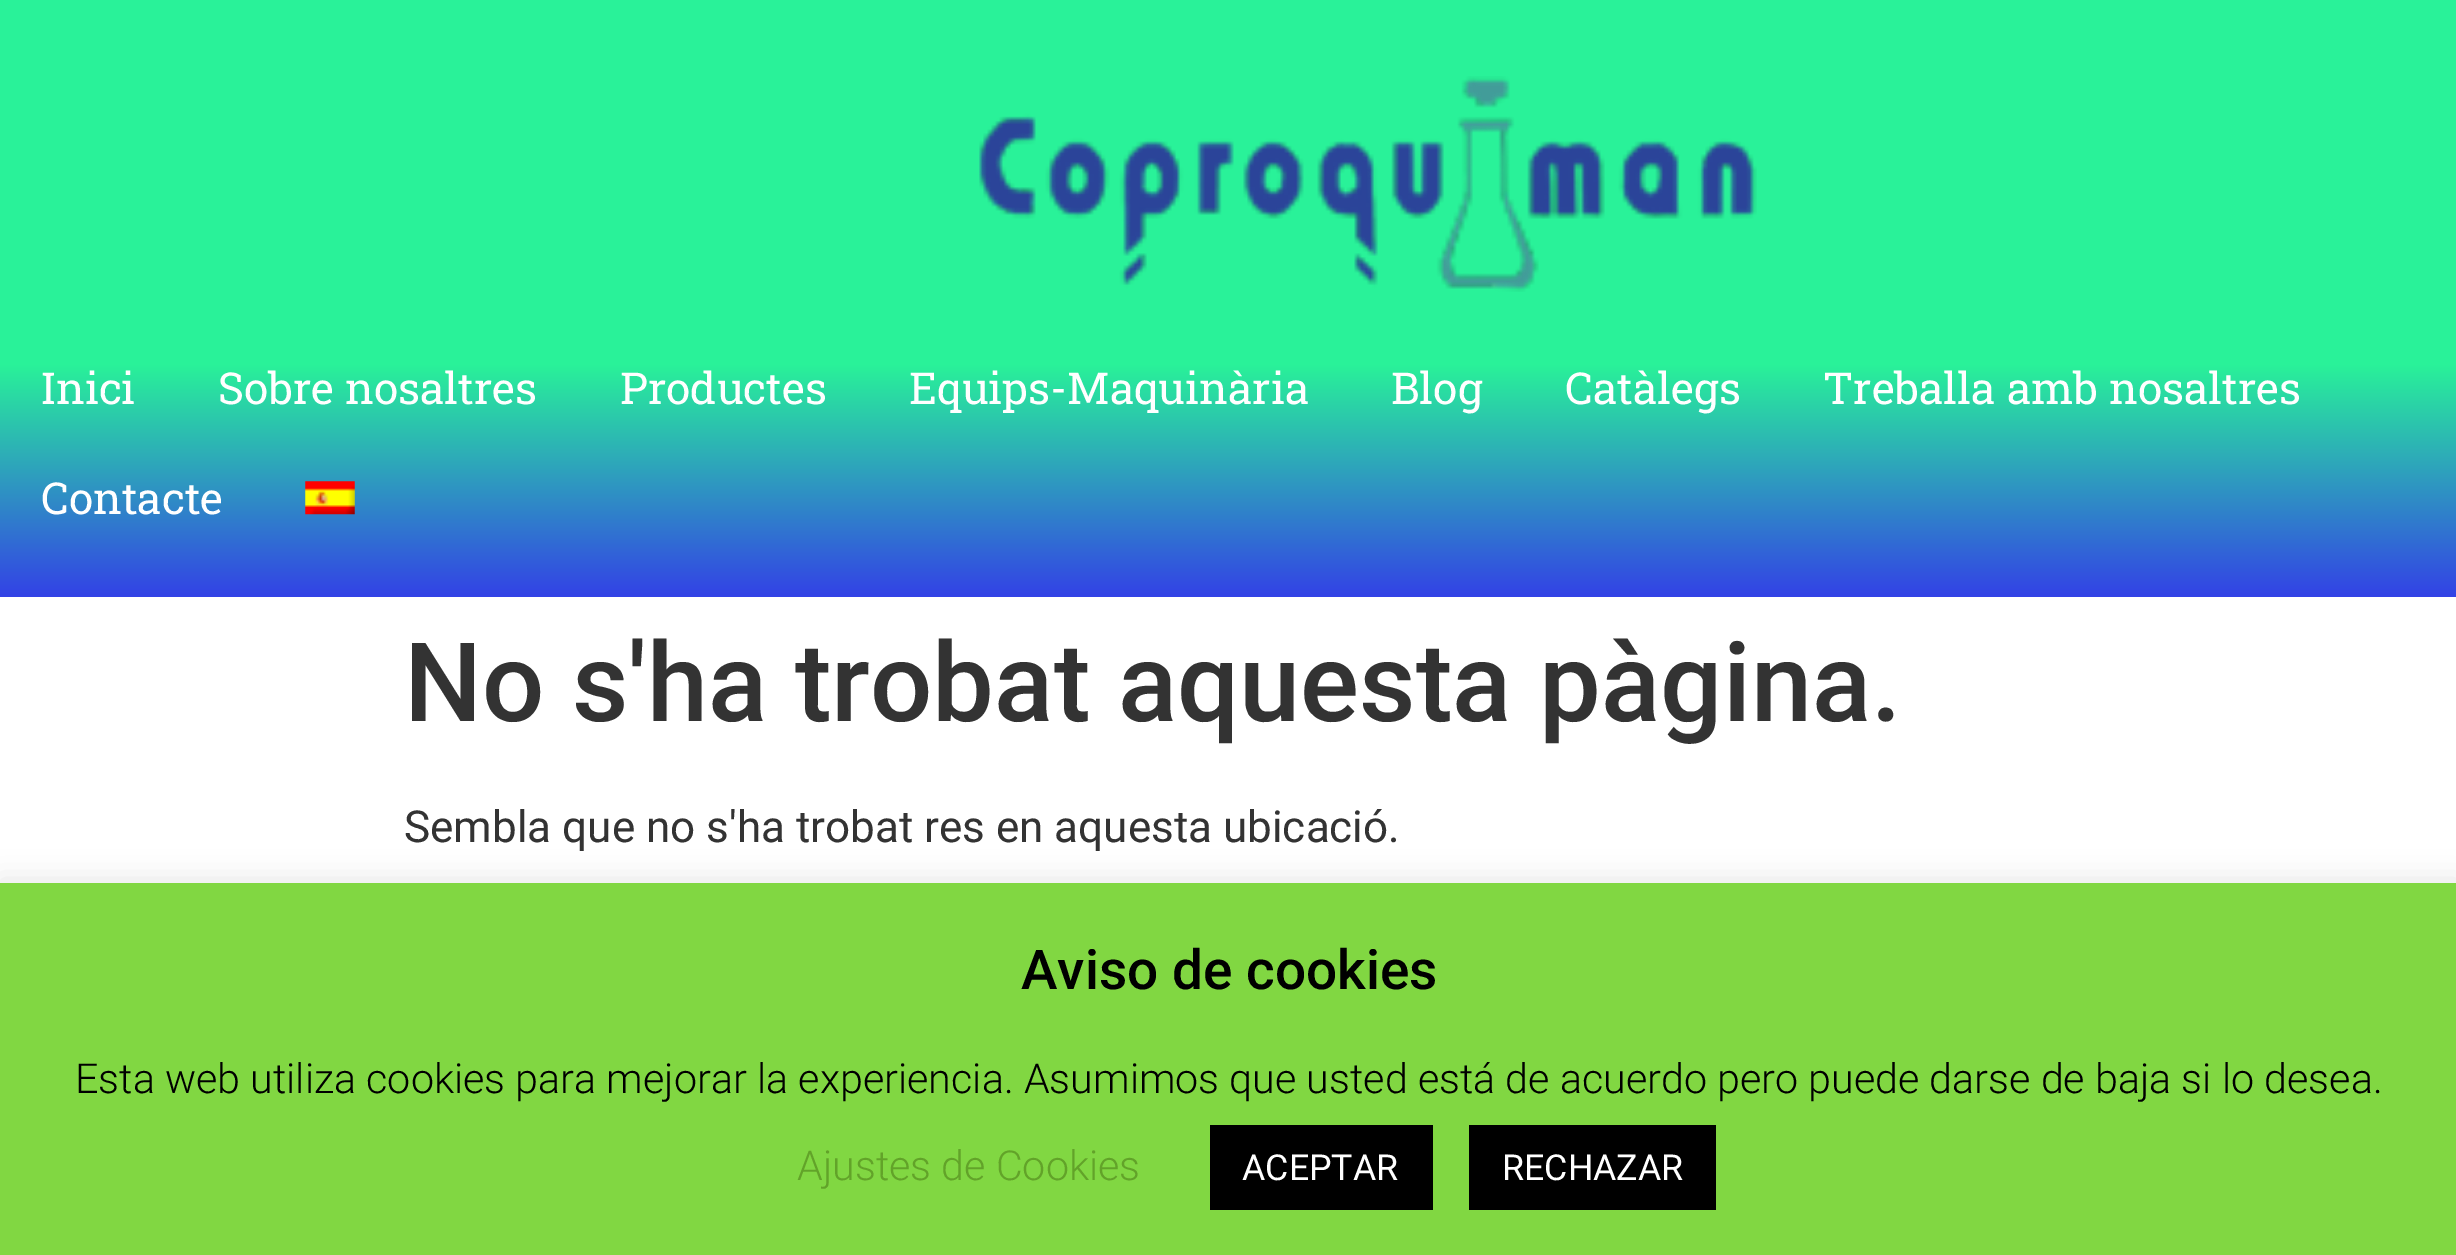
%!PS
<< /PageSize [2456 1255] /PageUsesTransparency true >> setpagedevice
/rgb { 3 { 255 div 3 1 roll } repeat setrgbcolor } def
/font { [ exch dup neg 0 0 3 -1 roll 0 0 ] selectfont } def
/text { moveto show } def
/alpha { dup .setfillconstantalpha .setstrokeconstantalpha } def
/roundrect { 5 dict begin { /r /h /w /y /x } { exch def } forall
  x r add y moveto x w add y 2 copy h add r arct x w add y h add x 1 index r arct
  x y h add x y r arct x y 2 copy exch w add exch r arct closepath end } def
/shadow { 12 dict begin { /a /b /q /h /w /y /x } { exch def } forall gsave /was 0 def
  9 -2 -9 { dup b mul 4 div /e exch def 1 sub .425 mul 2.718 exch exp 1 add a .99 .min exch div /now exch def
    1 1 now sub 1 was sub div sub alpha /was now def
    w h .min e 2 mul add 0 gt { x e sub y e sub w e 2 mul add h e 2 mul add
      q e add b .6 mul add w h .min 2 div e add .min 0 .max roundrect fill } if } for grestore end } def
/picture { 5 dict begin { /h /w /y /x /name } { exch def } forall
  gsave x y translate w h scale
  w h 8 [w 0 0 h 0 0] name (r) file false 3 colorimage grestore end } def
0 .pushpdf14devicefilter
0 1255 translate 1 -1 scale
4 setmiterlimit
255 255 255 rgb
0 0 2456 1255 rectfill
gsave 0 0 moveto 2456 0 rlineto 0 597 rlineto -2456 0 rlineto closepath clip newpath
<< /ShadingType 2 /ColorSpace /DeviceRGB /Coords [1229 0 1229 597] /Extend [true true] /Function << /FunctionType 3 /Domain [0 1] /Functions [<< /FunctionType 2 /Domain [0 1] /C0 [0.161 0.949 0.6] /C1 [0.161 0.949 0.6] /N 1 >> << /FunctionType 2 /Domain [0 1] /C0 [0.161 0.949 0.6] /C1 [0.2 0.259 0.902] /N 1 >>] /Bounds [0.61] /Encode [0 1 0 1] >> >> shfill grestore
(img_01.rgb) 979 76 778 216 picture
(img_02.rgb) 305 481 50 34 picture
172 171 171 rgb
0 880 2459 374 0 14 0.3 shadow
129 215 66 rgb
0 883 2456 372 rectfill
0 0 0 rgb
1210 1125 223 85 rectfill
1469 1125 247 85 rectfill
/RobotoSlab-Regular 44 font
255 255 255 rgb
(Inici) 41 404 text
(Sobre nosaltres) 218 404 text
(Productes) 620 404 text
(Equips-Maquinària) 909 404 text
(Blog) 1391 404 text
(Catàlegs) 1565 404 text
(Treballa amb nosaltres) 1823 404 text
(Contacte) 41 514 text
/Roboto-Medium 110 font
51 51 51 rgb
(No s'ha trobat aquesta pàgina.) 404 721 text
/Roboto-Regular 44 font
(Sembla que no s'ha trobat res en aquesta ubicació.) 404 842 text
/Roboto-Medium 55 font
0 0 0 rgb
(Aviso de cookies) 1021 989 text
/Roboto-Light 41.25 font
(Esta web utiliza cookies para mejorar la experiencia. Asumimos que usted está de acuerdo pero puede darse de baja si lo desea.) 75 1093 text
98 163 41 rgb
(Ajustes de Cookies) 797 1180 text
/Roboto-Regular 35.75 font
255 255 255 rgb
(ACEPTAR) 1242 1180 text
(RECHAZAR) 1502 1180 text
.poppdf14devicefilter showpage
